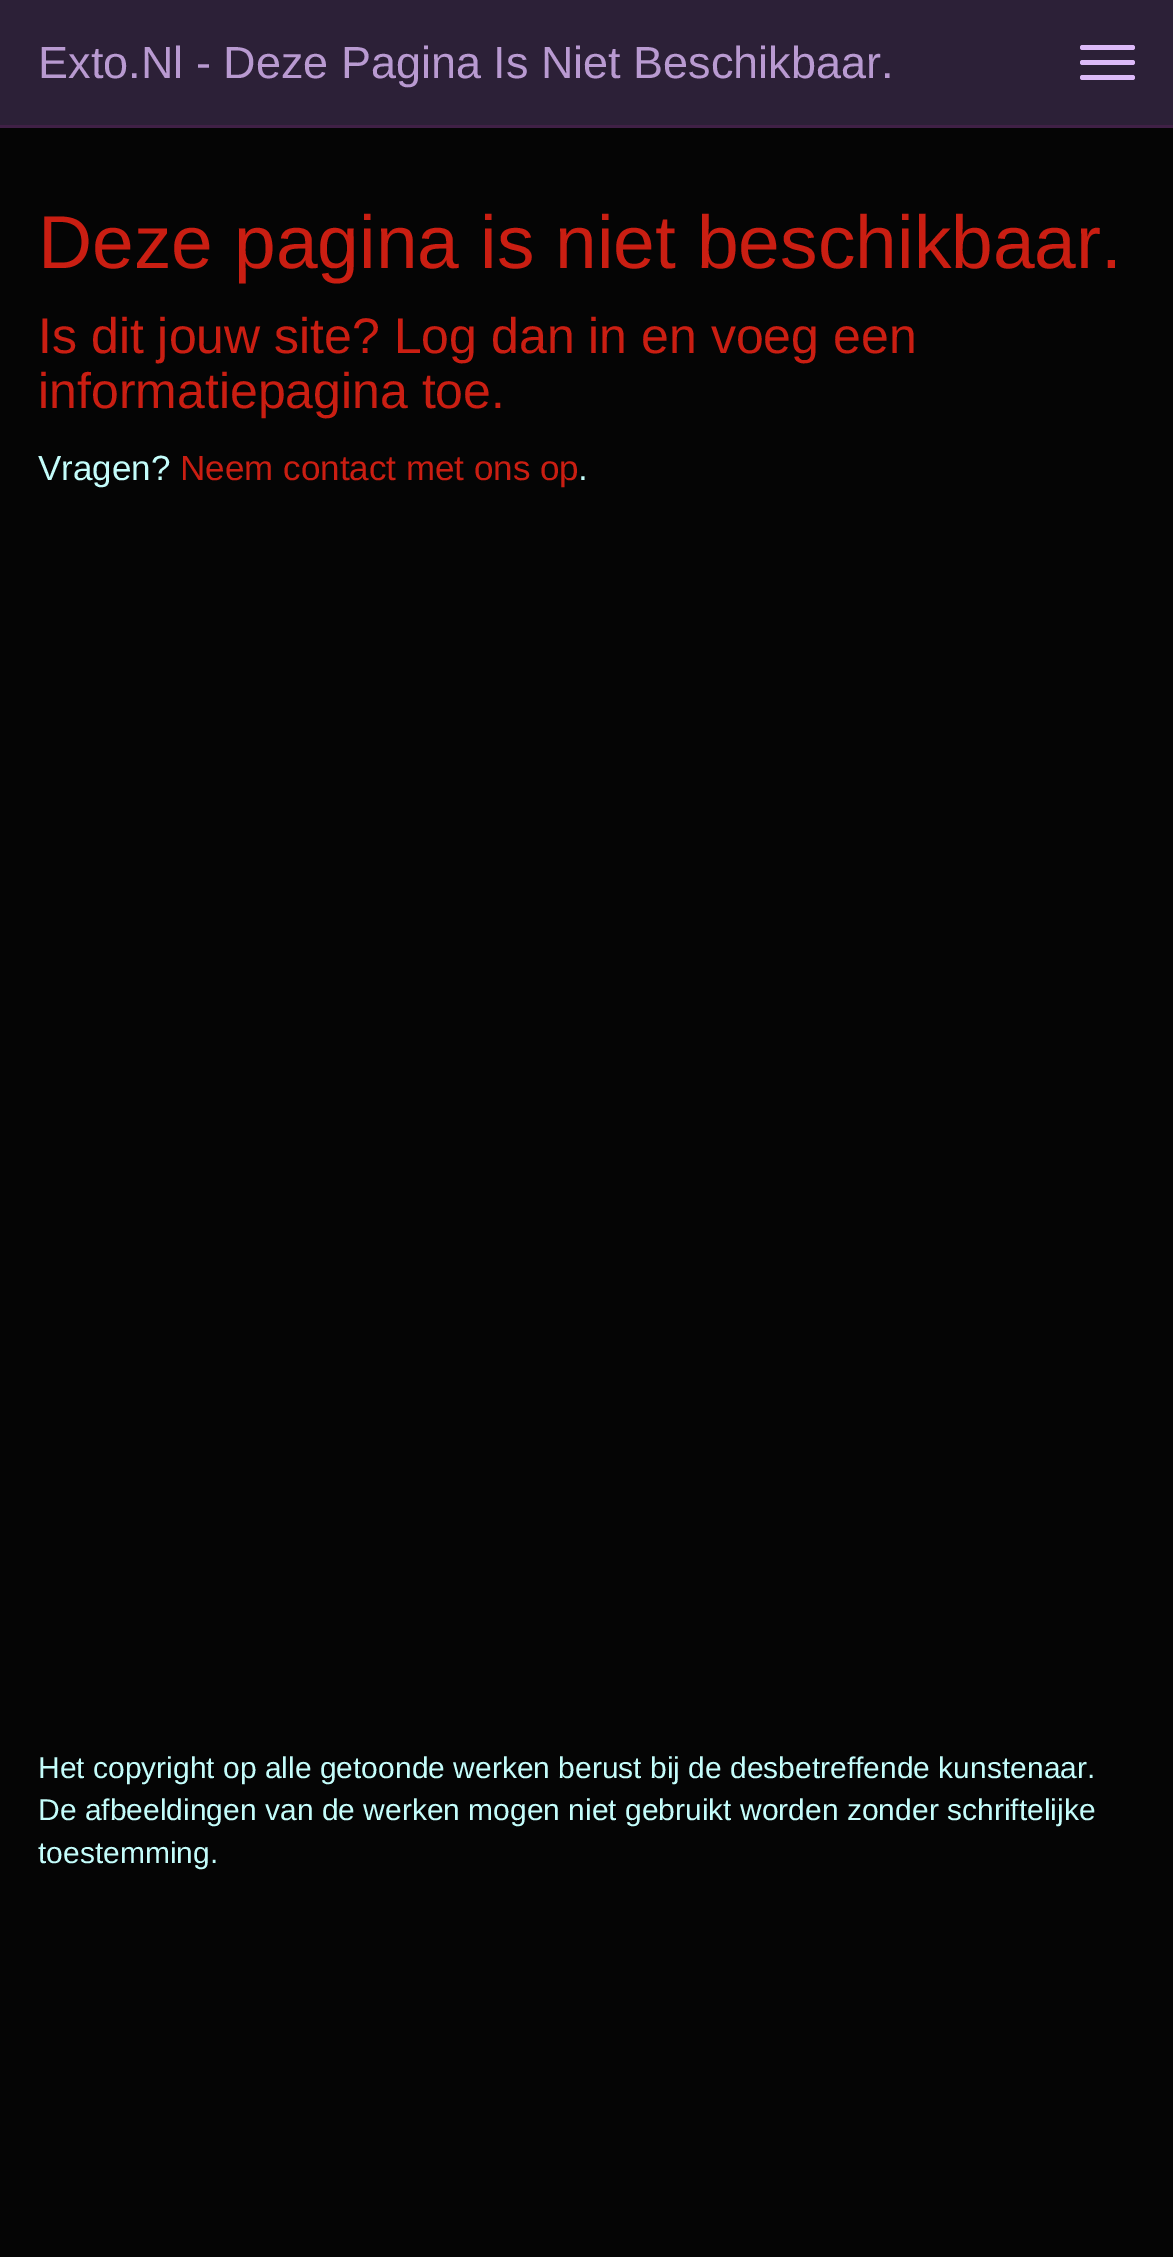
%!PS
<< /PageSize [1173 2257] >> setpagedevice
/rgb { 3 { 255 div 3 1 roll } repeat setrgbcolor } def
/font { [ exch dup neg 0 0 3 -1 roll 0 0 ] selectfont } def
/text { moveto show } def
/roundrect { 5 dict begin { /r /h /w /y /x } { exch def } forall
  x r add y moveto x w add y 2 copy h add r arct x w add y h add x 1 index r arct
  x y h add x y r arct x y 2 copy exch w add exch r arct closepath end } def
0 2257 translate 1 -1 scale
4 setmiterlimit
5 5 5 rgb
0 0 1173 2257 rectfill
44 32 55 rgb
0 0 1173 125 rectfill
64 32 70 rgb
0 125 1173 3 rectfill
220 185 248 rgb
1080 45 55 5 2.5 roundrect fill
1080 60 55 5 2.5 roundrect fill
1080 75 55 5 2.5 roundrect fill
/LiberationSans-Regular 45 font
185 154 209 rgb
(Exto.Nl - Deze Pagina Is Niet Beschikbaar.) 38 78 text
/LiberationSans-Regular 75 font
202 30 18 rgb
(Deze pagina is niet beschikbaar.) 38 268 text
/LiberationSans-Regular 50 font
(Is dit jouw site? Log dan in en voeg een) 38 353 text
(informatiepagina toe.) 38 408 text
/LiberationSans-Regular 35 font
196 253 251 rgb
(Vragen?) 38 480 text
202 30 18 rgb
(Neem contact met ons op) 180 480 text
196 253 251 rgb
(.) 578 480 text
/LiberationSans-Regular 30 font
(Het copyright op alle getoonde werken berust bij de desbetreffende kunstenaar.) 38 1778 text
(De afbeeldingen van de werken mogen niet gebruikt worden zonder schriftelijke) 38 1820 text
(toestemming.) 38 1863 text
showpage
